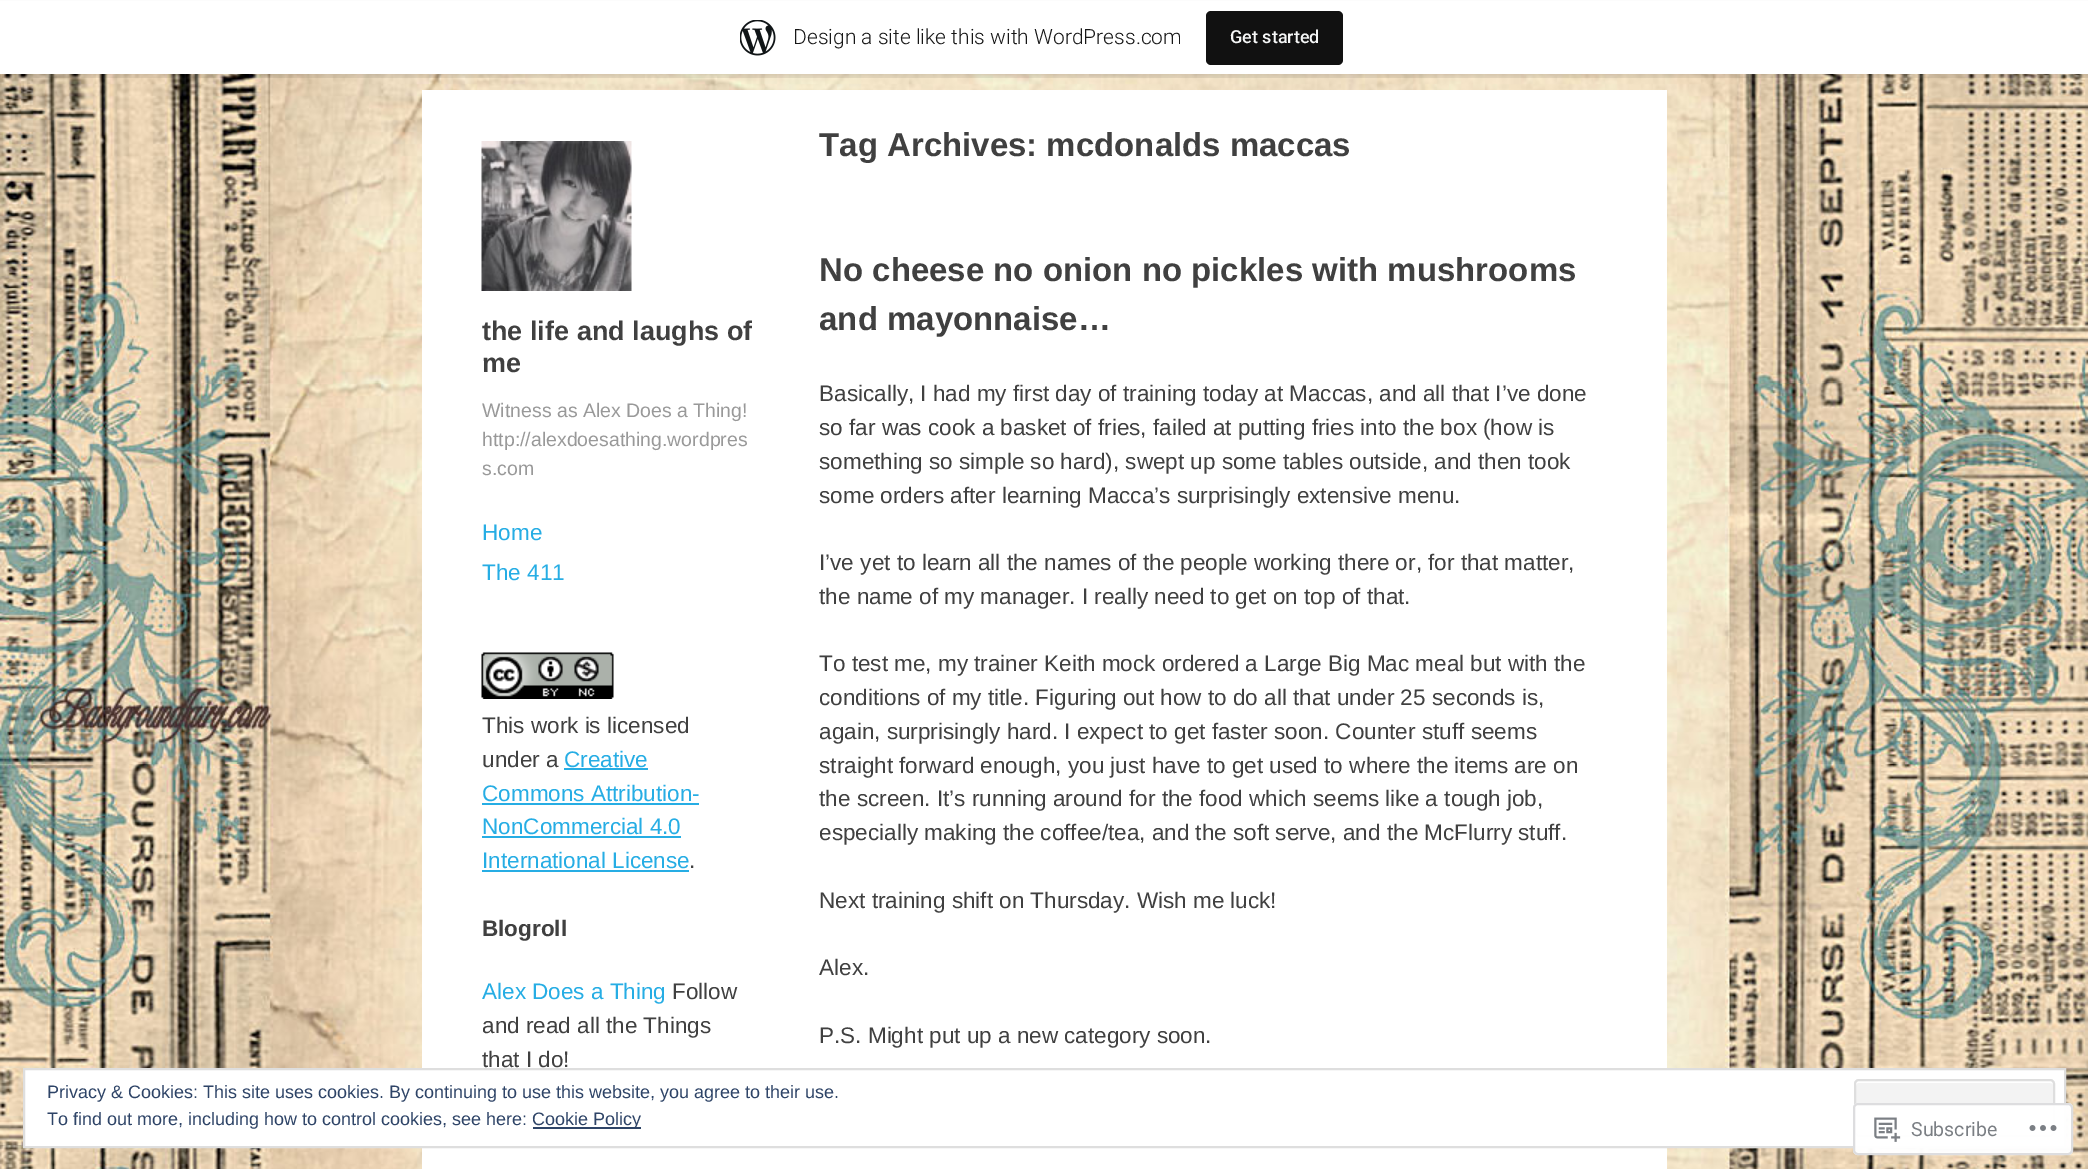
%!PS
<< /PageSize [2088 1169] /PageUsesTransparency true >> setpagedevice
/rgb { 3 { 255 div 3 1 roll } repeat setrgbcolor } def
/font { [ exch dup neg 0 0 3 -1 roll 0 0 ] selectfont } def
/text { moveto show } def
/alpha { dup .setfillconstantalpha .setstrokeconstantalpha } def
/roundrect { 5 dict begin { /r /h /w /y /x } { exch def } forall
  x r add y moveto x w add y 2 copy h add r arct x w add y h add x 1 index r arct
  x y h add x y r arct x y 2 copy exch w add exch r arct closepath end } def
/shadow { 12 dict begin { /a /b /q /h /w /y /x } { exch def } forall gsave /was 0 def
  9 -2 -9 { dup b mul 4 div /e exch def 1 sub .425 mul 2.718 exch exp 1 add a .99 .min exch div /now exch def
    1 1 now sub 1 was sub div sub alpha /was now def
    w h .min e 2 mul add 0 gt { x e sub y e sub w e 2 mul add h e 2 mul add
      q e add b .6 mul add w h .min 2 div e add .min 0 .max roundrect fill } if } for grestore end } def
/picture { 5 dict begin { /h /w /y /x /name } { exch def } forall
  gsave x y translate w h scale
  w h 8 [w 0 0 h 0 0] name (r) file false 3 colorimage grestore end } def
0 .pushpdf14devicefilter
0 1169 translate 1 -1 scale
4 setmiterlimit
255 255 255 rgb
0 0 2088 1169 rectfill
(img_01.rgb) 0 74 2088 1095 picture
0 0 0 rgb
0 2 2088 73 0 1.5 0.05 shadow
0.08 alpha
2 74 moveto 0 4 rlineto 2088 0 rlineto 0 -73 rlineto -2 0 rlineto 0 69 rlineto closepath fill
1 alpha
255 255 255 rgb
0 1 2088 73 rectfill
(img_02.rgb) 740 20 36 36 picture
17 17 17 rgb
1206 11 137 54 5 roundrect fill
255 255 255 rgb
422 90 1245 1079 rectfill
(img_03.rgb) 481 652 133 47 picture
38 173 228 rgb
564 768 84 2 rectfill
482 803 217 2 rectfill
482 836 199 2 rectfill
482 870 207 2 rectfill
(img_04.rgb) 481 141 151 150 picture
255 255 255 rgb
24 1069 moveto 2041 0 rlineto 0 78 rlineto -2041 0 rlineto closepath gsave fill grestore
222 222 222 rgb
2 setlinewidth
stroke
243 243 243 rgb
1854 1079 201 58 5 roundrect fill
255 255 255 rgb
1858 1083 moveto 192 0 rlineto 2 0 4 1 4 3 rcurveto 0 -3 rlineto 0 -2 -1 -3 -3 -3 rcurveto -192 0 rlineto -2 0 -3 1 -3 3 rcurveto 0 3 rlineto 0 -2 1 -3 2 -3 rcurveto closepath fill
222 222 222 rgb
1855 1080 199 56 4 roundrect stroke
46 68 103 rgb
533 1127 108 2 rectfill
0.98 alpha
255 255 255 rgb
1853 1103 220 52 5 roundrect fill
220 220 222 rgb
1854 1104 218 50 4 roundrect stroke
1 alpha
(img_05.rgb) 1874 1117 27 25 picture
(img_06.rgb) 2029 1125 28 6 picture
/Roboto-Light 21 font
23 23 23 rgb
(Design a site like this with WordPress.com) 793 44 text
/Roboto-Medium 18 font
246 247 247 rgb
(Get started) 1230 43 text
/LiberationSans-Regular 22.5 font
64 64 64 rgb
(This work is licensed) 482 733 text
(under a) 482 767 text
38 173 228 rgb
(Creative) 564 767 text
(Commons Attribution-) 482 801 text
(NonCommercial 4.0) 482 834 text
(International License) 482 868 text
64 64 64 rgb
(.) 689 868 text
/LiberationSans-Bold 22.5 font
(Blogroll) 482 936 text
/LiberationSans-Regular 22.5 font
38 173 228 rgb
(Alex Does a Thing) 482 999 text
64 64 64 rgb
(Follow) 672 999 text
(and read all the Things) 482 1033 text
(that I do!) 482 1067 text
/LiberationSans-Bold 33 font
(Tag Archives: mcdonalds maccas) 819 156 text
(No cheese no onion no pickles with mushrooms) 819 281 text
(and mayonnaise…) 819 330 text
/LiberationSans-Regular 22.5 font
(Basically, I had my first day of training today at Maccas, and all that I’ve done) 819 401 text
(so far was cook a basket of fries, failed at putting fries into the box \(how is) 819 435 text
(something so simple so hard\), swept up some tables outside, and then took) 819 469 text
(some orders after learning Macca’s surprisingly extensive menu.) 819 503 text
(I’ve yet to learn all the names of the people working there or, for that matter,) 819 570 text
(the name of my manager. I really need to get on top of that.) 819 604 text
(To test me, my trainer Keith mock ordered a Large Big Mac meal but with the) 819 671 text
(conditions of my title. Figuring out how to do all that under 25 seconds is,) 819 705 text
(again, surprisingly hard. I expect to get faster soon. Counter stuff seems) 819 739 text
(straight forward enough, you just have to get used to where the items are on) 819 773 text
(the screen. It’s running around for the food which seems like a tough job,) 819 806 text
(especially making the coffee/tea, and the soft serve, and the McFlurry stuff.) 819 840 text
(Next training shift on Thursday. Wish me luck!) 819 908 text
(Alex.) 819 975 text
(P.S. Might put up a new category soon.) 819 1043 text
/LiberationSans-Bold 27 font
(the life and laughs of) 482 340 text
(me) 482 372 text
/LiberationSans-Regular 19.5 font
153 153 153 rgb
(Witness as Alex Does a Thing!) 482 417 text
(http://alexdoesathing.wordpres) 482 446 text
(s.com) 482 475 text
/LiberationSans-Regular 22.5 font
38 173 228 rgb
(Home) 482 540 text
(The 411) 482 580 text
/LiberationSans-Regular 18 font
46 68 103 rgb
(Privacy & Cookies: This site uses cookies. By continuing to use this website, you agree to their use.) 47 1098 text
(To find out more, including how to control cookies, see here:) 47 1125 text
(Cookie Policy) 532 1125 text
/Roboto-Regular 19.5 font
123 127 132 rgb
(Subscribe) 1911 1136 text
.poppdf14devicefilter showpage
